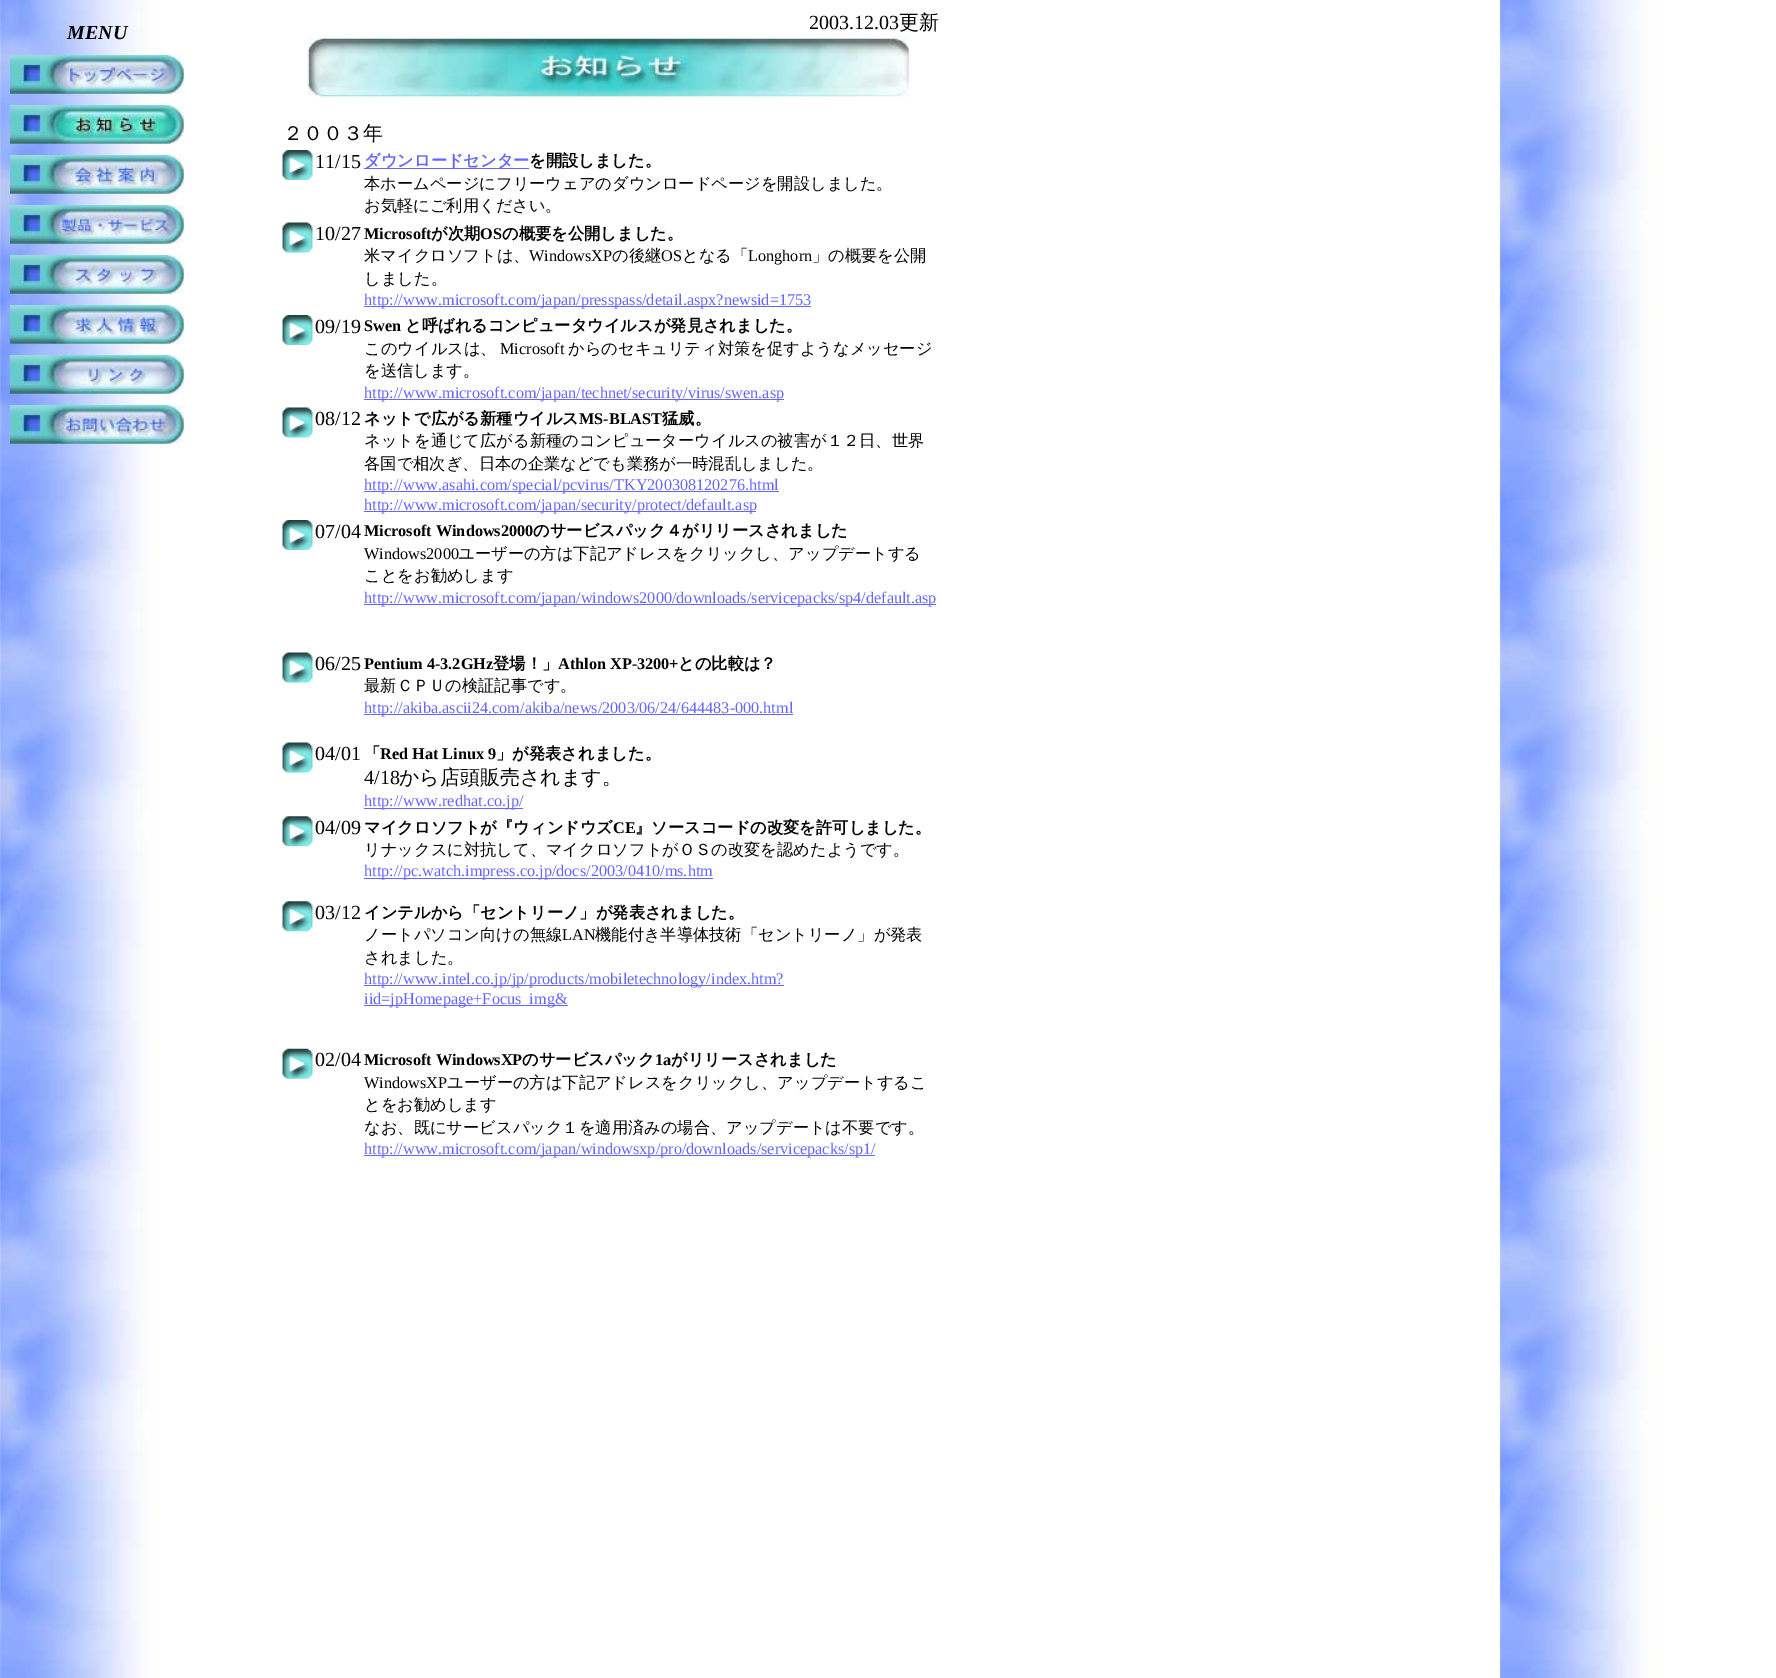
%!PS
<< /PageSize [1776 1678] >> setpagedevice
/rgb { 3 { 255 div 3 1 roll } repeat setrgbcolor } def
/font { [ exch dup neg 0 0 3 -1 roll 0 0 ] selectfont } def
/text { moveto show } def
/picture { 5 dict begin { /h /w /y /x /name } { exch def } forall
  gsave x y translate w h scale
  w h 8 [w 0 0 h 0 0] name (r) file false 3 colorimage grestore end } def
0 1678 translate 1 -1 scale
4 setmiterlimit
255 255 255 rgb
0 0 1776 1678 rectfill
(img_01.rgb) 0 0 1660 1678 picture
(img_02.rgb) 10 55 174 39 picture
(img_03.rgb) 10 105 174 39 picture
(img_04.rgb) 10 155 174 39 picture
(img_05.rgb) 10 205 174 39 picture
(img_06.rgb) 10 255 174 39 picture
(img_07.rgb) 10 305 174 39 picture
(img_08.rgb) 10 355 174 39 picture
(img_09.rgb) 10 405 174 39 picture
(img_10.rgb) 307 36 604 62 picture
(img_11.rgb) 282 150 31 30 picture
102 102 255 rgb
364 168 165 1 rectfill
(img_12.rgb) 282 222 31 31 picture
364 306 447 1 rectfill
(img_11.rgb) 282 315 31 30 picture
364 399 420 1 rectfill
(img_12.rgb) 282 407 31 31 picture
364 491 415 1 rectfill
364 511 392 1 rectfill
(img_11.rgb) 282 520 31 30 picture
364 604 572 1 rectfill
(img_12.rgb) 282 652 31 31 picture
364 714 429 1 rectfill
(img_12.rgb) 282 742 31 31 picture
364 808 159 1 rectfill
(img_13.rgb) 282 816 31 31 picture
364 878 349 1 rectfill
(img_13.rgb) 282 901 31 31 picture
364 985 420 1 rectfill
364 1005 204 1 rectfill
(img_14.rgb) 282 1048 31 31 picture
364 1155 511 1 rectfill
/LiberationSerif-Regular 20 font
0 0 0 rgb
(2003.12.03) 809 29 text
/WenQuanYiZenHei-Medium 20 font
(更新) 899 29 text
/LiberationSerif-BoldItalic 20 font
(MENU) 67 39 text
/WenQuanYiZenHei-Medium 20 font
(２００３年) 283 140 text
/LiberationSerif-Regular 20 font
(11/15) 315 168 text
/WenQuanYiZenHei-Bold 16.25 font
102 102 255 rgb
(ダウンロードセンター) 364 166 text
0 0 0 rgb
(を開設しました。) 529 166 text
/WenQuanYiZenHei-Medium 16.25 font
(本ホームページにフリーウェアのダウンロードページを開設しました。) 364 189 text
(お気軽にご利用ください。) 364 211 text
/LiberationSerif-Regular 20 font
(10/27) 315 240 text
/LiberationSerif-Bold 16.25 font
(Microsoft) 364 239 text
/WenQuanYiZenHei-Bold 16.25 font
(が次期) 431 239 text
/LiberationSerif-Bold 16.25 font
(OS) 480 239 text
/WenQuanYiZenHei-Bold 16.25 font
(の概要を公開しました。) 502 239 text
/WenQuanYiZenHei-Medium 16.25 font
(米マイクロソフトは、) 364 261 text
/LiberationSerif-Regular 16.25 font
(WindowsXP) 529 261 text
/WenQuanYiZenHei-Medium 16.25 font
(の後継) 612 261 text
/LiberationSerif-Regular 16.25 font
(OS) 661 261 text
/WenQuanYiZenHei-Medium 16.25 font
(となる「) 682 261 text
/LiberationSerif-Regular 16.25 font
(Longhorn) 748 261 text
/WenQuanYiZenHei-Medium 16.25 font
(」の概要を公開) 812 261 text
(しました。) 364 284 text
/LiberationSerif-Regular 16.25 font
102 102 255 rgb
(http://www.microsoft.com/japan/presspass/detail.aspx?newsid=1753) 364 305 text
/LiberationSerif-Regular 20 font
0 0 0 rgb
(09/19) 315 333 text
/LiberationSerif-Bold 16.25 font
(Swen) 364 331 text
/WenQuanYiZenHei-Bold 16.25 font
(と呼ばれるコンピュータウイルスが発見されました。) 405 331 text
/WenQuanYiZenHei-Medium 16.25 font
(このウイルスは、) 364 354 text
/LiberationSerif-Regular 16.25 font
(Microsoft) 500 354 text
/WenQuanYiZenHei-Medium 16.25 font
(からのセキュリティ対策を促すようなメッセージ) 568 354 text
(を送信します。) 364 376 text
/LiberationSerif-Regular 16.25 font
102 102 255 rgb
(http://www.microsoft.com/japan/technet/security/virus/swen.asp) 364 398 text
/LiberationSerif-Regular 20 font
0 0 0 rgb
(08/12) 315 425 text
/WenQuanYiZenHei-Bold 16.25 font
(ネットで広がる新種ウイルス) 364 424 text
/LiberationSerif-Bold 16.25 font
(MS-BLAST) 579 424 text
/WenQuanYiZenHei-Bold 16.25 font
(猛威。) 662 424 text
/WenQuanYiZenHei-Medium 16.25 font
(ネットを通じて広がる新種のコンピューターウイルスの被害が１２日、世界) 364 446 text
(各国で相次ぎ、日本の企業などでも業務が一時混乱しました。) 364 469 text
/LiberationSerif-Regular 16.25 font
102 102 255 rgb
(http://www.asahi.com/special/pcvirus/TKY200308120276.html) 364 490 text
(http://www.microsoft.com/japan/security/protect/default.asp) 364 510 text
/LiberationSerif-Regular 20 font
0 0 0 rgb
(07/04) 315 538 text
/LiberationSerif-Bold 16.25 font
(Microsoft Windows2000) 364 536 text
/WenQuanYiZenHei-Bold 16.25 font
(のサービスパック４がリリースされました) 533 536 text
/LiberationSerif-Regular 16.25 font
(Windows2000) 364 559 text
/WenQuanYiZenHei-Medium 16.25 font
(ユーザーの方は下記アドレスをクリックし、アップデートする) 458 559 text
(ことをお勧めします) 364 581 text
/LiberationSerif-Regular 16.25 font
102 102 255 rgb
(http://www.microsoft.com/japan/windows2000/downloads/servicepacks/sp4/default.asp) 364 603 text
/LiberationSerif-Regular 20 font
0 0 0 rgb
(06/25) 315 670 text
/LiberationSerif-Bold 16.25 font
(Pentium 4-3.2GHz) 364 669 text
/WenQuanYiZenHei-Bold 16.25 font
(登場！」) 493 669 text
/LiberationSerif-Bold 16.25 font
(Athlon XP-3200+) 558 669 text
/WenQuanYiZenHei-Bold 16.25 font
(との比較は？) 678 669 text
/WenQuanYiZenHei-Medium 16.25 font
(最新ＣＰＵの検証記事です。) 364 691 text
/LiberationSerif-Regular 16.25 font
102 102 255 rgb
(http://akiba.ascii24.com/akiba/news/2003/06/24/644483-000.html) 364 713 text
/LiberationSerif-Regular 20 font
0 0 0 rgb
(04/01) 315 760 text
/WenQuanYiZenHei-Bold 16.25 font
(「) 364 759 text
/LiberationSerif-Bold 16.25 font
(Red Hat Linux 9) 380 759 text
/WenQuanYiZenHei-Bold 16.25 font
(」が発表されました。) 496 759 text
/LiberationSerif-Regular 20 font
(4/18) 364 784 text
/WenQuanYiZenHei-Medium 20 font
(から店頭販売されます。) 399 784 text
/LiberationSerif-Regular 16.25 font
102 102 255 rgb
(http://www.redhat.co.jp/) 364 806 text
/LiberationSerif-Regular 20 font
0 0 0 rgb
(04/09) 315 834 text
/WenQuanYiZenHei-Bold 16.25 font
(マイクロソフトが『ウィンドウズ) 364 833 text
/LiberationSerif-Bold 16.25 font
(CE) 613 833 text
/WenQuanYiZenHei-Bold 16.25 font
(』ソースコードの改変を許可しました。) 635 833 text
/WenQuanYiZenHei-Medium 16.25 font
(リナックスに対抗して、マイクロソフトがＯＳの改変を認めたようです。) 364 855 text
/LiberationSerif-Regular 16.25 font
102 102 255 rgb
(http://pc.watch.impress.co.jp/docs/2003/0410/ms.htm) 364 876 text
/LiberationSerif-Regular 20 font
0 0 0 rgb
(03/12) 315 919 text
/WenQuanYiZenHei-Bold 16.25 font
(インテルから「セントリーノ」が発表されました。) 364 918 text
/WenQuanYiZenHei-Medium 16.25 font
(ノートパソコン向けの無線) 364 940 text
/LiberationSerif-Regular 16.25 font
(LAN) 562 940 text
/WenQuanYiZenHei-Medium 16.25 font
(機能付き半導体技術「セントリーノ」が発表) 595 940 text
(されました。) 364 963 text
/LiberationSerif-Regular 16.25 font
102 102 255 rgb
(http://www.intel.co.jp/jp/products/mobiletechnology/index.htm?) 364 984 text
(iid=jpHomepage+Focus_img&) 364 1004 text
/LiberationSerif-Regular 20 font
0 0 0 rgb
(02/04) 315 1066 text
/LiberationSerif-Bold 16.25 font
(Microsoft WindowsXP) 364 1065 text
/WenQuanYiZenHei-Bold 16.25 font
(のサービスパック) 522 1065 text
/LiberationSerif-Bold 16.25 font
(1a) 655 1065 text
/WenQuanYiZenHei-Bold 16.25 font
(がリリースされました) 671 1065 text
/LiberationSerif-Regular 16.25 font
(WindowsXP) 364 1088 text
/WenQuanYiZenHei-Medium 16.25 font
(ユーザーの方は下記アドレスをクリックし、アップデートするこ) 447 1088 text
(とをお勧めします) 364 1110 text
(なお、既にサービスパック１を適用済みの場合、アップデートは不要です。) 364 1133 text
/LiberationSerif-Regular 16.25 font
102 102 255 rgb
(http://www.microsoft.com/japan/windowsxp/pro/downloads/servicepacks/sp1/) 364 1154 text
showpage
